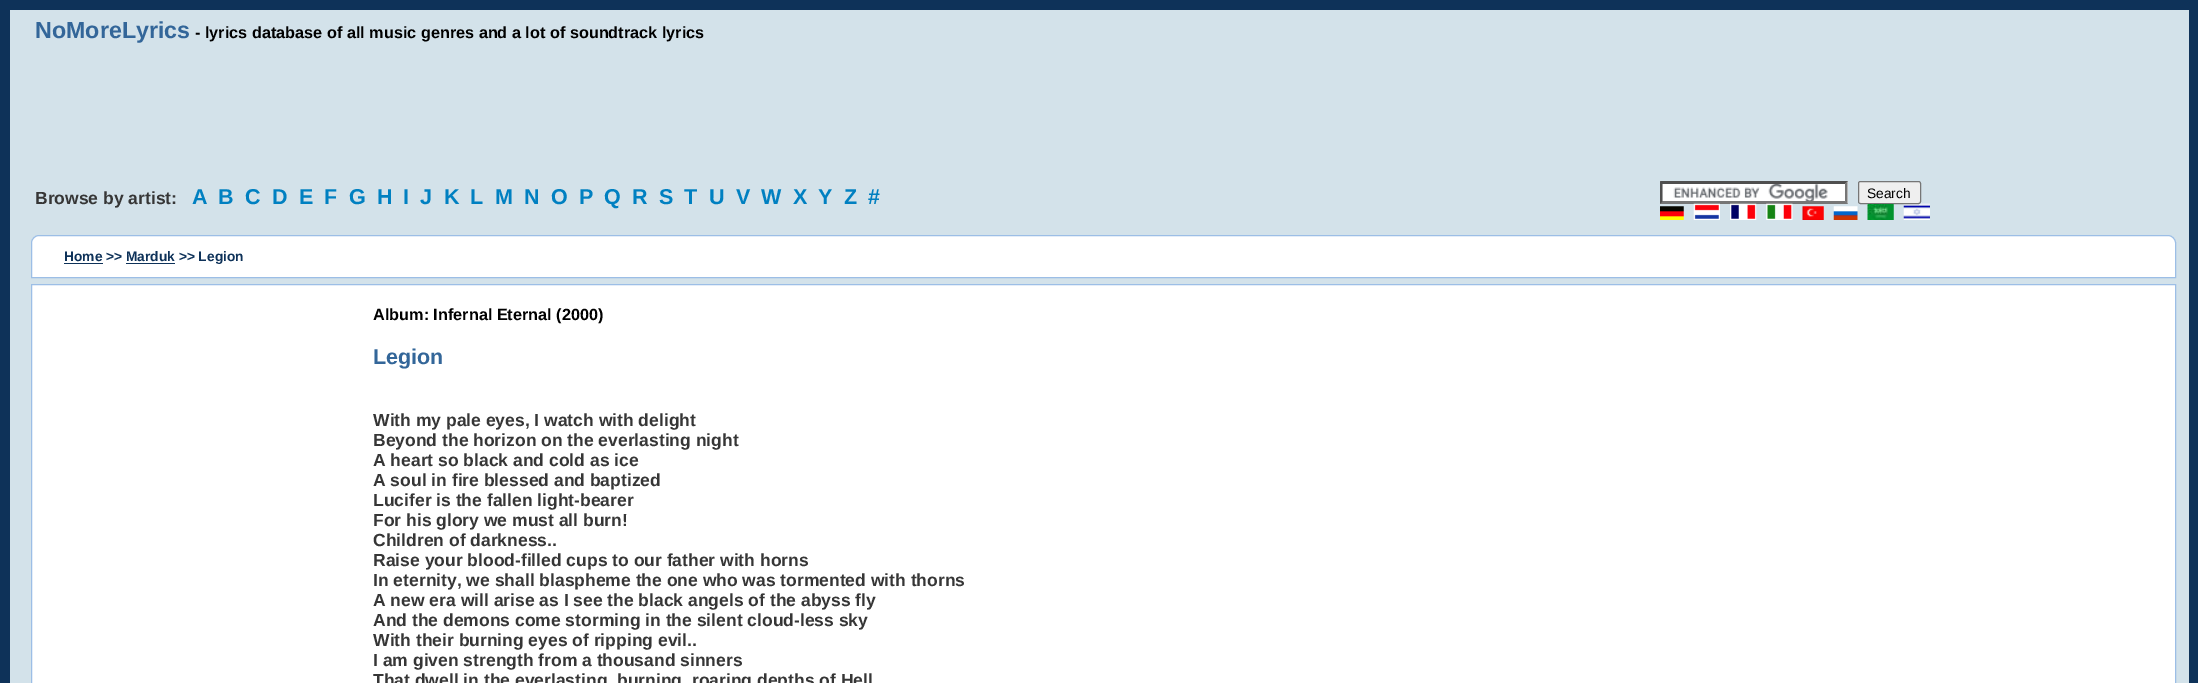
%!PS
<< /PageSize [2198 683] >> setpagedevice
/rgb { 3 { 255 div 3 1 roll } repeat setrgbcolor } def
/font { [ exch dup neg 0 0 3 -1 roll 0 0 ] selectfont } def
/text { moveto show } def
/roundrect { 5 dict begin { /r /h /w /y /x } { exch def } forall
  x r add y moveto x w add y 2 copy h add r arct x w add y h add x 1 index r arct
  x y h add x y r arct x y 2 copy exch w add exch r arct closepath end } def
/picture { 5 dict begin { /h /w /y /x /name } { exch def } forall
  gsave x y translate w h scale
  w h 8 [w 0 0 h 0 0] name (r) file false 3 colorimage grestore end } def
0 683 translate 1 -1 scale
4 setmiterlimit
14 50 89 rgb
0 0 2198 683 rectfill
211 226 234 rgb
10 10 2179 673 rectfill
255 255 255 rgb
1660 181 188 23 rectfill
(img_01.rgb) 1673 184 155 17 picture
79 79 79 rgb
1660 181 moveto 188 0 rlineto -3 3 rlineto -183 0 rlineto closepath fill
118 118 118 rgb
1847.5 181 moveto 0 23 rlineto -2.5 -3 rlineto 0 -17 rlineto closepath fill
1848 204 moveto -188 0 rlineto 2 -3 rlineto 183 0 rlineto closepath fill
79 79 79 rgb
1660 204 moveto 0 -23 rlineto 2.5 3 rlineto 0 17 rlineto closepath fill
(img_09.rgb) 1903 203 27 17 picture
239 239 239 rgb
1858.5 181.5 62 22 2 roundrect gsave fill grestore
118 118 118 rgb
stroke
(img_02.rgb) 1660 206 24 14 picture
(img_03.rgb) 1693 203 27 17 picture
(img_04.rgb) 1730 203 27 17 picture
(img_05.rgb) 1766 203 27 17 picture
(img_06.rgb) 1802 206 22 14 picture
(img_07.rgb) 1833 206 25 14 picture
(img_08.rgb) 1867 204 27 16 picture
255 255 255 rgb
39 235.5 moveto 2129 0 rlineto 4 0 7.5 3.5 7.5 7.5 rcurveto 0 34.5 rlineto -2144 0 rlineto 0 -34.5 rlineto 0 -4 3.5 -7.5 7.5 -7.5 rcurveto closepath gsave fill grestore
156 190 230 rgb
stroke
14 50 89 rgb
64 263 39 1 rectfill
126 263 49 1 rectfill
255 255 255 rgb
31.5 284.5 moveto 2144 0 rlineto 0 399 rlineto -2144 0 rlineto closepath gsave fill grestore
156 190 230 rgb
stroke
/LiberationSans-Bold 23.25 font
51 102 153 rgb
(NoMoreLyrics) 35 38 text
/LiberationSans-Bold 16.25 font
0 0 0 rgb
(- lyrics database of all music genres and a lot of soundtrack lyrics) 195 38 text
/LiberationSans-Bold 17.5 font
54 54 54 rgb
(Browse by artist:) 35 204 text
/LiberationSans-Bold 21.5 font
0 128 193 rgb
192 204 moveto 6 0 (A) ashow
218 204 moveto 6 0 (B) ashow
245 204 moveto 6 0 (C) ashow
272 204 moveto 6 0 (D) ashow
299 204 moveto 6 0 (E) ashow
324 204 moveto 6 0 (F) ashow
349 204 moveto 6 0 (G) ashow
377 204 moveto 6 0 (H) ashow
403 204 moveto 6 0 (I) ashow
420 204 moveto 6 0 (J) ashow
444 204 moveto 6 0 (K) ashow
470 204 moveto 6 0 (L) ashow
495 204 moveto 6 0 (M) ashow
524 204 moveto 6 0 (N) ashow
551 204 moveto 6 0 (O) ashow
579 204 moveto 6 0 (P) ashow
604 204 moveto 6 0 (Q) ashow
632 204 moveto 6 0 (R) ashow
659 204 moveto 6 0 (S) ashow
684 204 moveto 6 0 (T) ashow
709 204 moveto 6 0 (U) ashow
736 204 moveto 6 0 (V) ashow
761 204 moveto 6 0 (W) ashow
793 204 moveto 6 0 (X) ashow
818 204 moveto 6 0 (Y) ashow
844 204 moveto 6 0 (Z) ashow
868 204 moveto 6 0 (#) ashow
/LiberationSans-Regular 13.75 font
0 0 0 rgb
(Search) 1867 198 text
/LiberationSans-Bold 13.75 font
14 50 89 rgb
(Home >> Marduk >> Legion) 64 261 text
/LiberationSans-Bold 16.25 font
0 0 0 rgb
(Album: Infernal Eternal \(2000\)) 373 320 text
/LiberationSans-Bold 21.5 font
51 102 153 rgb
(Legion) 373 364 text
/LiberationSans-Bold 17.5 font
54 54 54 rgb
(With my pale eyes, I watch with delight) 373 426 text
(Beyond the horizon on the everlasting night) 373 446 text
(A heart so black and cold as ice) 373 466 text
(A soul in fire blessed and baptized) 373 486 text
(Lucifer is the fallen light-bearer) 373 506 text
(For his glory we must all burn!) 373 526 text
(Children of darkness..) 373 546 text
(Raise your blood-filled cups to our father with horns) 373 566 text
(In eternity, we shall blaspheme the one who was tormented with thorns) 373 586 text
(A new era will arise as I see the black angels of the abyss fly) 373 606 text
(And the demons come storming in the silent cloud-less sky) 373 626 text
(With their burning eyes of ripping evil..) 373 646 text
(I am given strength from a thousand sinners) 373 666 text
(That dwell in the everlasting, burning, roaring depths of Hell) 373 686 text
showpage
